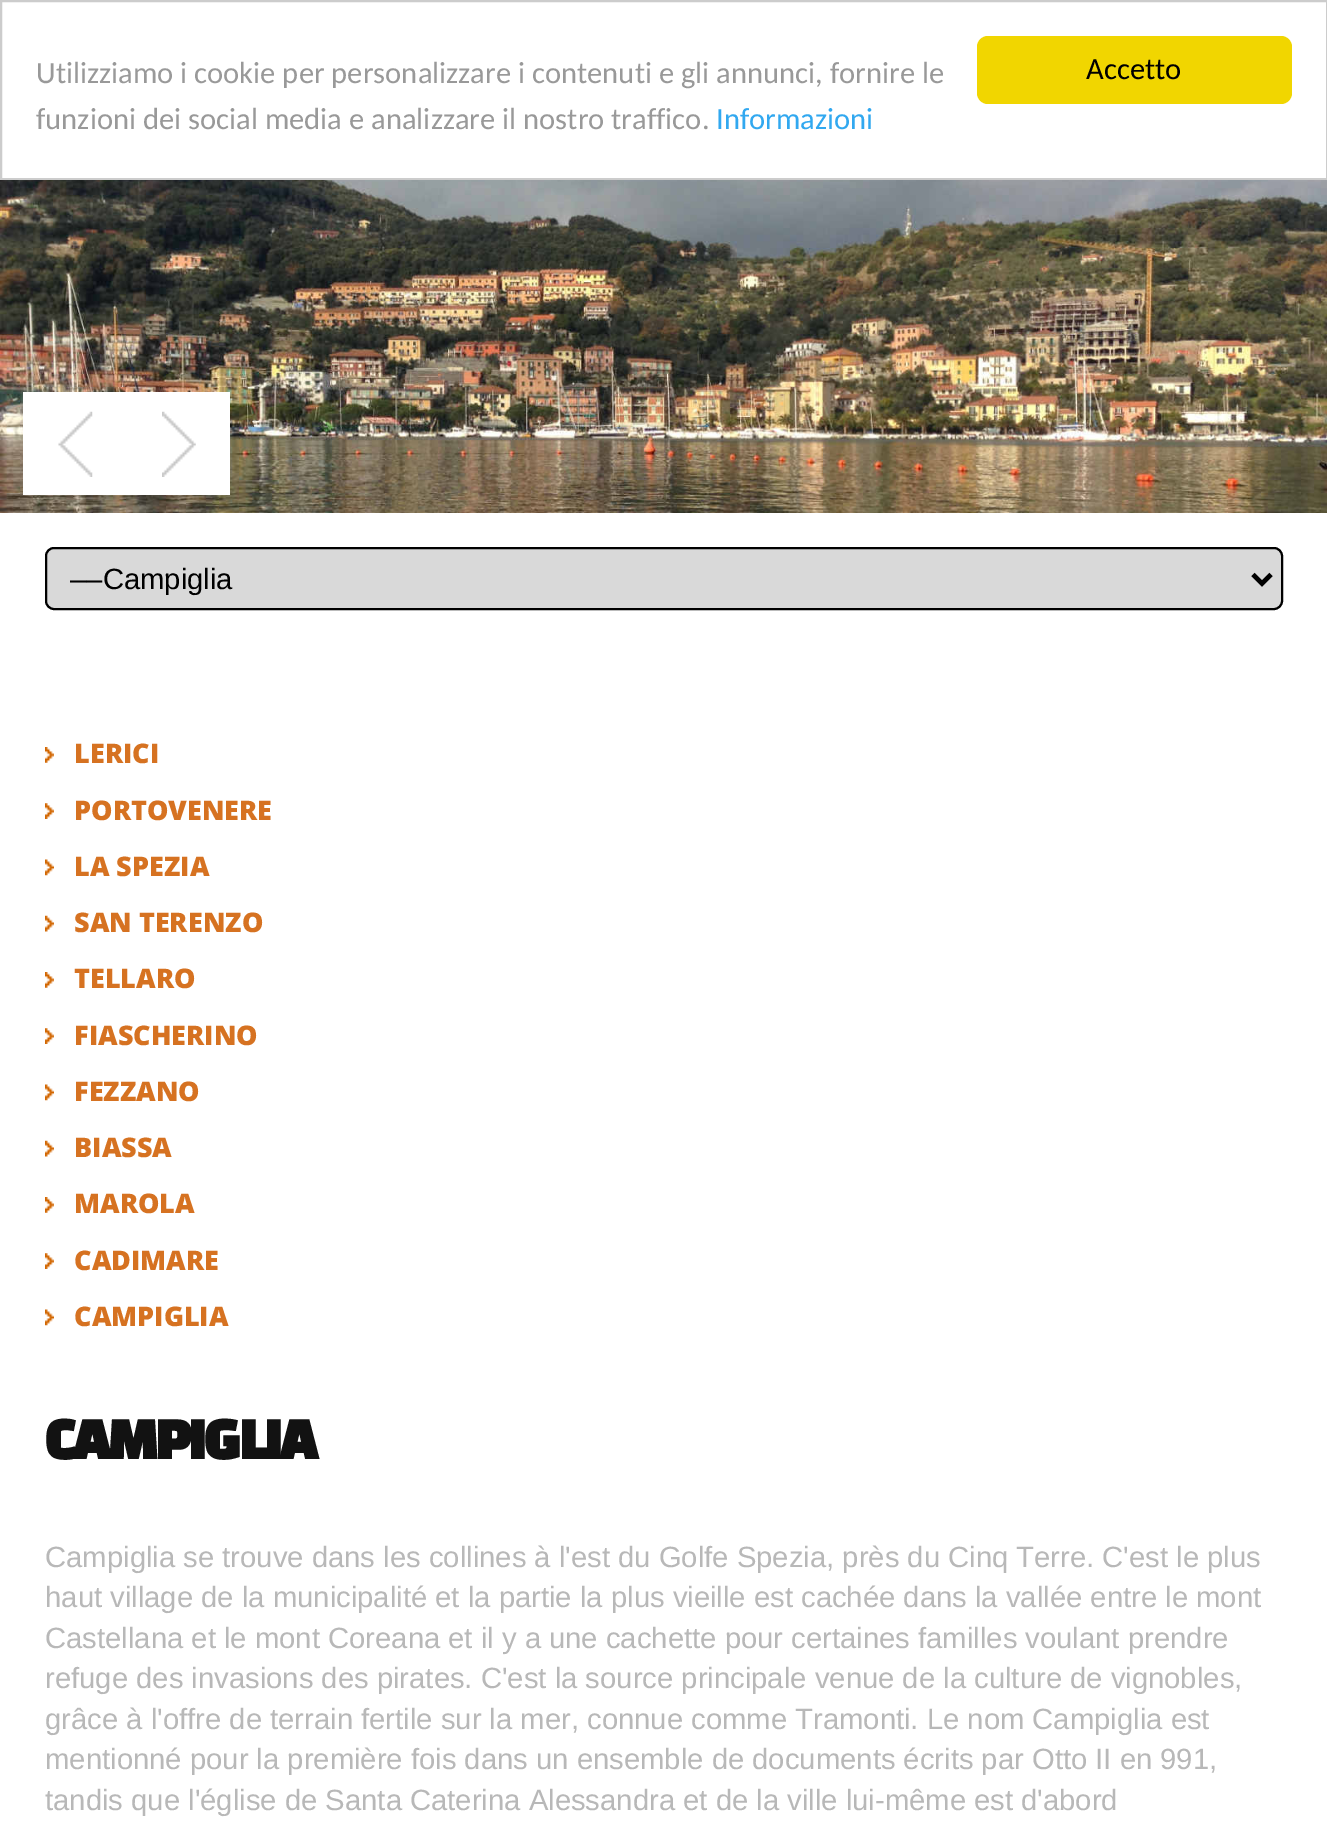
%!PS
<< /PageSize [1327 1821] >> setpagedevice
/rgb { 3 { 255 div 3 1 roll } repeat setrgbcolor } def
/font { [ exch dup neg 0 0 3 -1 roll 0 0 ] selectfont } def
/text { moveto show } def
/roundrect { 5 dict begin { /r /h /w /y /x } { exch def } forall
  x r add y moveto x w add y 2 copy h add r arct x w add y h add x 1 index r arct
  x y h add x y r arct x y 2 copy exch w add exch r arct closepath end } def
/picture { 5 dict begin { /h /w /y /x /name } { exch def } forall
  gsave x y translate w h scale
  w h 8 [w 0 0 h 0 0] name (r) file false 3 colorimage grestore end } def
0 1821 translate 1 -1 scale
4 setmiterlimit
255 255 255 rgb
0 0 1327 1821 rectfill
204 204 204 rgb
2 setlinewidth
1 1 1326 178 rectstroke
241 214 0 rgb
977 36 315 68 11 roundrect fill
(img_01.rgb) 0 180 1327 333 picture
255 255 255 rgb
23 392 207 103 rectfill
(img_02.rgb) 58 411 35 66 picture
(img_03.rgb) 162 411 34 66 picture
217 217 217 rgb
46 548 1236 61 8 roundrect gsave fill grestore
0 0 0 rgb
stroke
4.5 setlinewidth
1253 574.5 moveto 9 9 rlineto 9 -9 rlineto stroke
(img_04.rgb) 45 747 9 16 picture
(img_05.rgb) 45 803 9 16 picture
(img_06.rgb) 45 859 9 17 picture
(img_07.rgb) 45 915 9 17 picture
(img_04.rgb) 45 972 9 16 picture
(img_05.rgb) 45 1028 9 16 picture
(img_06.rgb) 45 1084 9 17 picture
(img_07.rgb) 45 1140 9 17 picture
(img_04.rgb) 45 1197 9 16 picture
(img_05.rgb) 45 1253 9 16 picture
(img_06.rgb) 45 1309 9 17 picture
/Carlito-Regular 30.6 font
153 153 153 rgb
(Utilizziamo i cookie per personalizzare i contenuti e gli annunci, fornire le) 36 83 text
(funzioni dei social media e analizzare il nostro traffico.) 36 129 text
49 168 240 rgb
(Informazioni) 716 129 text
0 0 0 rgb
(Accetto) 1086 79 text
gsave
70 560 1161 39 rectclip
/LiberationSans-Regular 29.25 font
(––Campiglia) 70 589 text
grestore
/OpenSans-ExtraBold 27 font
214 114 33 rgb
(LERICI) 74 763 text
(PORTOVENERE) 74 820 text
(LA SPEZIA) 74 876 text
(SAN TERENZO) 74 932 text
(TELLARO) 74 988 text
(FIASCHERINO) 74 1045 text
(FEZZANO) 74 1101 text
(BIASSA) 74 1157 text
(MAROLA) 74 1213 text
(CADIMARE) 74 1270 text
(CAMPIGLIA) 74 1326 text
/ChangaOne-Bold 60.75 font
18 18 18 rgb
45 1459 moveto -2.25 0 (CAMPIGLIA) ashow
/LiberationSans-Regular 29.25 font
184 184 184 rgb
(Campiglia se trouve dans les collines à l'est du Golfe Spezia, près du Cinq Terre. C'est le plus) 45 1567 text
(haut village de la municipalité et la partie la plus vieille est cachée dans la vallée entre le mont) 45 1607 text
(Castellana et le mont Coreana et il y a une cachette pour certaines familles voulant prendre) 45 1648 text
(refuge des invasions des pirates. C'est la source principale venue de la culture de vignobles,) 45 1688 text
(grâce à l'offre de terrain fertile sur la mer, connue comme Tramonti. Le nom Campiglia est) 45 1729 text
(mentionné pour la première fois dans un ensemble de documents écrits par Otto II en 991,) 45 1769 text
(tandis que l'église de Santa Caterina Alessandra et de la ville lui-même est d'abord) 45 1810 text
showpage
